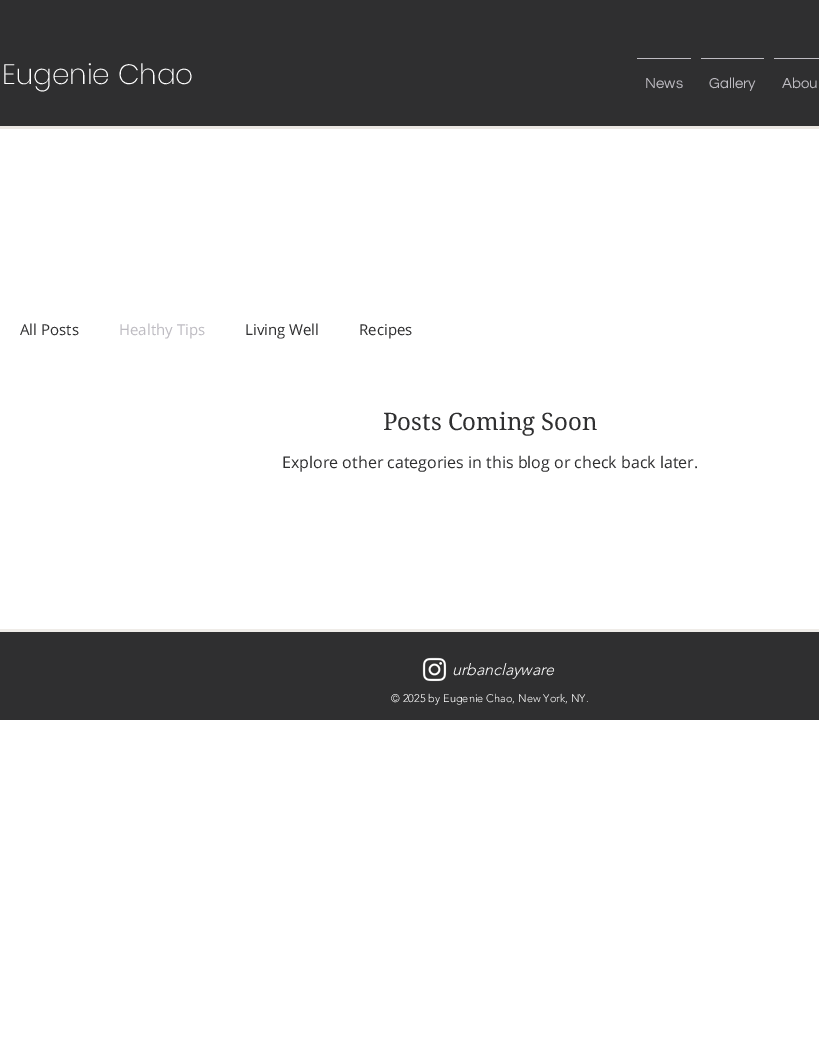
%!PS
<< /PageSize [819 1039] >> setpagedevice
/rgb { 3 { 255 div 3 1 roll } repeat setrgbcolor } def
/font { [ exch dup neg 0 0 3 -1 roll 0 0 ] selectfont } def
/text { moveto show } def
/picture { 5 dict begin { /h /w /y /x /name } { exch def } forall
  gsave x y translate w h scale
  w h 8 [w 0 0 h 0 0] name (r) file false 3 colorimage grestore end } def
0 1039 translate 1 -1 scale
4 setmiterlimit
255 255 255 rgb
0 0 819 1039 rectfill
235 231 226 rgb
0 126 819 3 rectfill
47 47 48 rgb
0 0 819 126 rectfill
190 188 194 rgb
637 58 54 1 rectfill
701 58 63 1 rectfill
774 58 45 1 rectfill
239 236 232 rgb
0 629 819 3 rectfill
47 47 48 rgb
0 632 819 88 rectfill
(img_01.rgb) 422 657 25 25 picture
/Poppins-ExtraLight 28 font
255 255 255 rgb
(Eugenie Chao) 2 84 text
/Questrial-Regular 15 font
190 188 194 rgb
(News) 645 88 text
(Gallery) 709 88 text
(Abou) 782 88 text
/OpenSans-Regular 15 font
47 47 48 rgb
(All Posts) 20 335 text
190 188 194 rgb
(Healthy Tips) 119 335 text
47 47 48 rgb
(Living Well) 245 335 text
(Recipes) 359 335 text
/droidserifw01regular-Regular 24 font
(Posts Coming Soon) 383 430 text
/OpenSans-Regular 16 font
(Explore other categories in this blog or check back later.) 282 468 text
/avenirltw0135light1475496-LightItalic 16 font
255 255 255 rgb
(urbanclayware) 452 675 text
/avenirltw0135light1475496-Light 11 font
(© 2025 by Eugenie Chao, New York, NY.) 391 702 text
showpage
